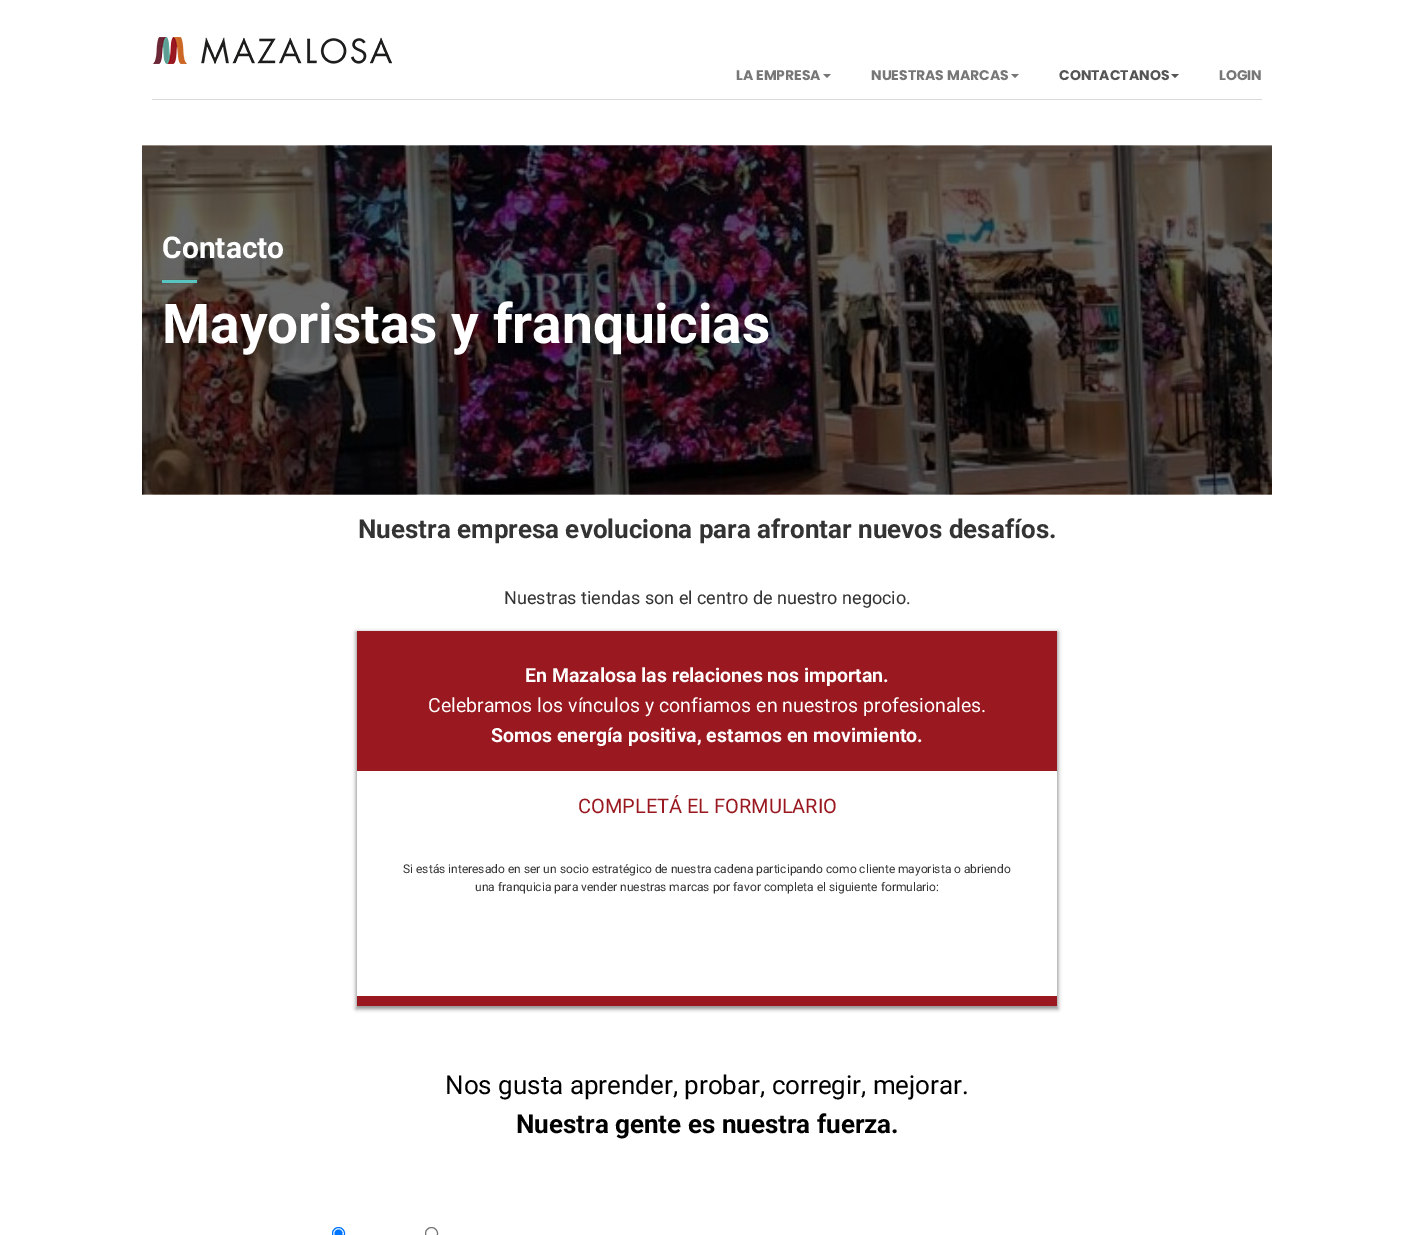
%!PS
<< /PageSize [1414 1235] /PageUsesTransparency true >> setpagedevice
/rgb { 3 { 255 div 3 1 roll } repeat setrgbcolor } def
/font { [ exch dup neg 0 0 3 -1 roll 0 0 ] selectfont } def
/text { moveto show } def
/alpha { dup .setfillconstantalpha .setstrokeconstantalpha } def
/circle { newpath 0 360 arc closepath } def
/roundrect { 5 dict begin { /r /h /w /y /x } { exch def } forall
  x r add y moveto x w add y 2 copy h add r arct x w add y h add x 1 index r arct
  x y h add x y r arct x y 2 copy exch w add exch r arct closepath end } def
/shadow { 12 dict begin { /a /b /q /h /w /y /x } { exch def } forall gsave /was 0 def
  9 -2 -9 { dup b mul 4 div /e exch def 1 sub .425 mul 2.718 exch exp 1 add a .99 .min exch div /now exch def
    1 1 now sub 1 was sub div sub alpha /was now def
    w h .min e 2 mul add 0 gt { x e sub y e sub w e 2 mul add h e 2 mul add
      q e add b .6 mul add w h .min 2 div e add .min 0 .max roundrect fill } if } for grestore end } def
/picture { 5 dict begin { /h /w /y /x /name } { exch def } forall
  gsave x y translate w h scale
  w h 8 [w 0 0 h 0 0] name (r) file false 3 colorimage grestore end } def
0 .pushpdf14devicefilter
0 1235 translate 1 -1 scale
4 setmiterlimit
255 255 255 rgb
0 0 1414 1235 rectfill
(img_01.rgb) 152 37 240 27 picture
119 119 119 rgb
823 74 moveto 8 0 rlineto -4 4 rlineto closepath fill
1011 74 moveto 8 0 rlineto -4 4 rlineto closepath fill
85 85 85 rgb
1171 74 moveto 8 0 rlineto -4 4 rlineto closepath fill
217 217 217 rgb
152 99 1110 1 rectfill
(img_02.rgb) 142 145 1130 350 picture
88 197 192 rgb
162 280 35 3 rectfill
gsave
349 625 moveto 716 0 rlineto 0 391 rlineto -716 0 rlineto closepath 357 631 moveto 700 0 rlineto 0 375 rlineto -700 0 rlineto closepath eoclip newpath
143 143 143 rgb
356 632 702 377 0 2 1 shadow
grestore
154 25 33 rgb
357 996 700 10 rectfill
357 631 700 140 rectfill
0 117 255 rgb
338.5 1233.5 6 circle stroke
338.5 1233.5 4 circle fill
118 118 118 rgb
431.5 1233.5 6 circle stroke
/Poppins-Bold 14 font
119 119 119 rgb
(LA EMPRESA) 736 80 text
(NUESTRAS MARCAS) 871 80 text
85 85 85 rgb
(CONTACTANOS) 1059 80 text
119 119 119 rgb
(LOGIN) 1219 80 text
/Roboto-Bold 30 font
255 255 255 rgb
(Contacto) 162 258 text
/Roboto-Bold 55 font
(Mayoristas y franquicias) 162 343 text
/Roboto-Bold 26 font
51 51 51 rgb
(Nuestra empresa evoluciona para afrontar nuevos desafíos.) 358 538 text
/Roboto-Regular 18 font
(Nuestras tiendas son el centro de nuestro negocio.) 504 604 text
/Roboto-Bold 19.5 font
255 255 255 rgb
(En Mazalosa las relaciones nos importan.) 525 682 text
/Roboto-Regular 19.5 font
(Celebramos los vínculos y confiamos en nuestros profesionales.) 428 712 text
/Roboto-Bold 19.5 font
(Somos energía positiva, estamos en movimiento.) 491 742 text
/Roboto-Regular 20 font
154 25 33 rgb
(COMPLETÁ EL FORMULARIO) 578 813 text
/Roboto-Regular 12 font
51 51 51 rgb
(Si estás interesado en ser un socio estratégico de nuestra cadena participando como cliente mayorista o abriendo) 403 873 text
(una franquicia para vender nuestras marcas por favor completa el siguiente formulario:) 475 891 text
/Roboto-Regular 26 font
0 0 0 rgb
(Nos gusta aprender, probar, corregir, mejorar.) 445 1094 text
/Roboto-Bold 26 font
(Nuestra gente es nuestra fuerza.) 516 1133 text
.poppdf14devicefilter showpage
